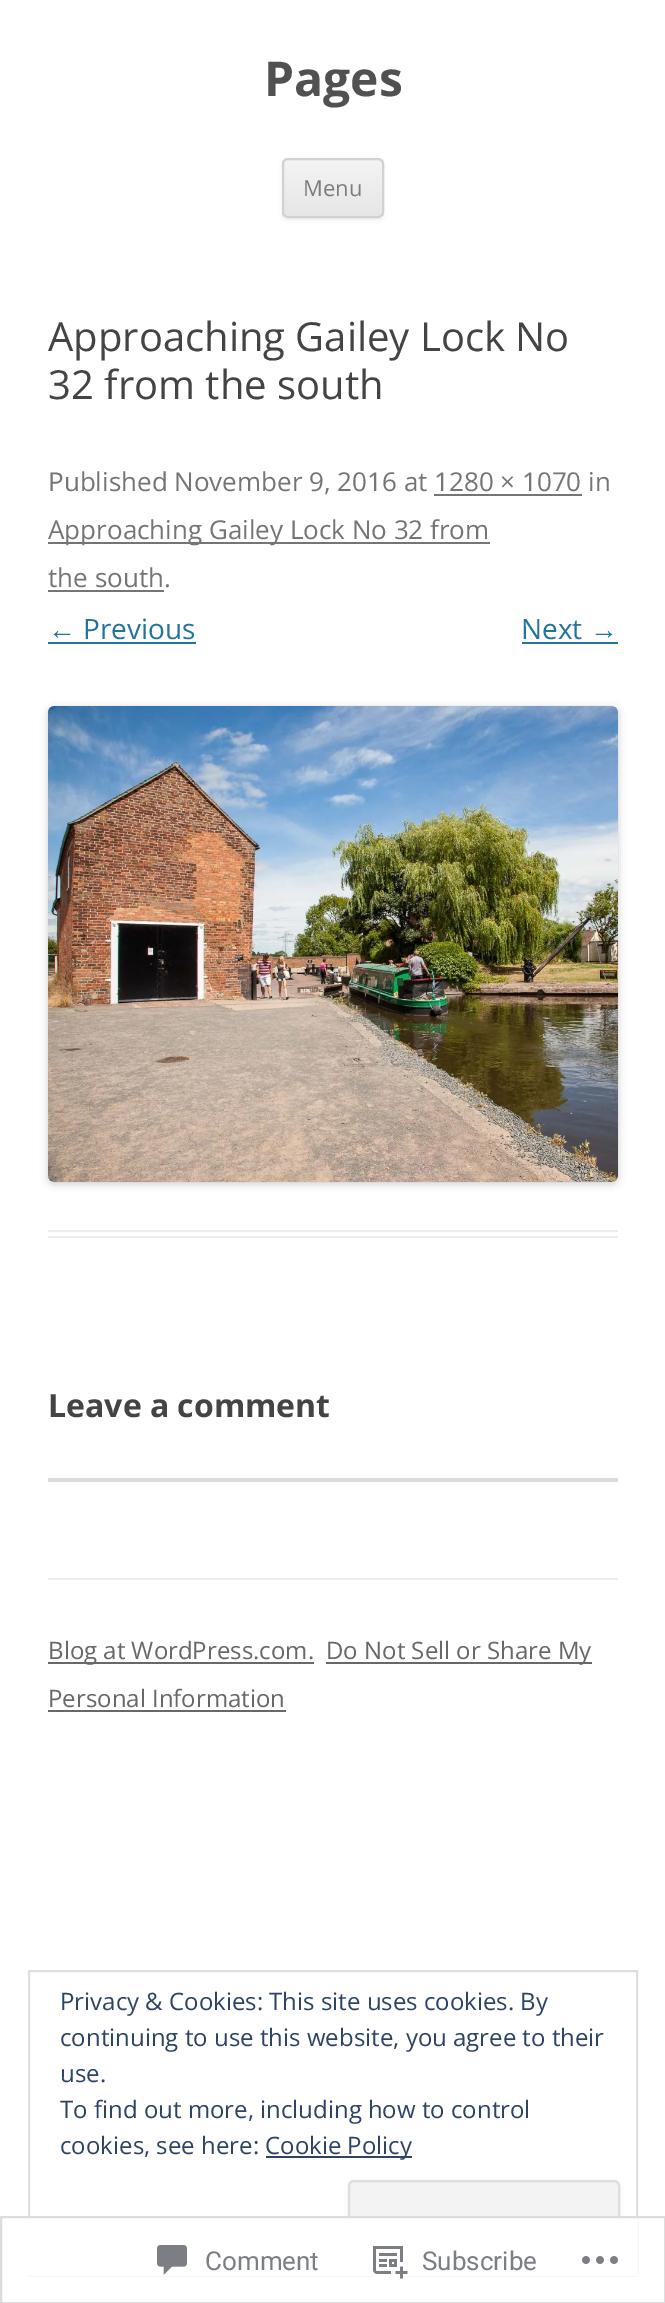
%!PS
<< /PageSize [665 2303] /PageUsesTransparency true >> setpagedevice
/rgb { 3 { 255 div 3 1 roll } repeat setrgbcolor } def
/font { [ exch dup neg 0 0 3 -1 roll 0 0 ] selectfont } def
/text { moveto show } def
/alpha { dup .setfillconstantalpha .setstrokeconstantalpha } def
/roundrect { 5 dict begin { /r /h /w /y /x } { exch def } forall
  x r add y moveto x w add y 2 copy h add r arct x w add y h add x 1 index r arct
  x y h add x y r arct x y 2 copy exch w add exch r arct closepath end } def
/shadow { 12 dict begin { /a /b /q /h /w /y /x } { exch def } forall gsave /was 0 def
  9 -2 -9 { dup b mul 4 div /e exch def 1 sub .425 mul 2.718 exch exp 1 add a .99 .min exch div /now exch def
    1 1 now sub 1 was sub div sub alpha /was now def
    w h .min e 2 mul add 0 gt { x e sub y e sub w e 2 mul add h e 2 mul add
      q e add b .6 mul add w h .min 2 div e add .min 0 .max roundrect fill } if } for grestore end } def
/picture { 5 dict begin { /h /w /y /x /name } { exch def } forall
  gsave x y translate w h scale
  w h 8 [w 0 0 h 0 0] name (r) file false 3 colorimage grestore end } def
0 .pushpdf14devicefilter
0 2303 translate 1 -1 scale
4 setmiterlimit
255 255 255 rgb
0 0 665 2303 rectfill
64 64 64 rgb
282 160 102 60 6 2 0.1 shadow
gsave
282 158 102 60 6 roundrect clip newpath
gsave 282 160 moveto 102 0 rlineto 0 56 rlineto -102 0 rlineto closepath clip newpath
<< /ShadingType 2 /ColorSpace /DeviceRGB /Coords [333 160 333 216] /Extend [true true] /Function << /FunctionType 2 /Domain [0 1] /C0 [0.957 0.957 0.957] /C1 [0.902 0.902 0.902] /N 1 >> >> shfill grestore
grestore
210 210 210 rgb
2 setlinewidth
283 159 100 58 5 roundrect stroke
237 237 237 rgb
48 1230 570 2 rectfill
48 1236 570 2 rectfill
117 117 117 rgb
434 494 148 2 rectfill
48 542 442 2 rectfill
48 590 116 2 rectfill
33 117 155 rgb
48 642 148 2 rectfill
522 642 96 2 rectfill
0 0 0 rgb
48 708 570 476 6 4 0.2 shadow
(img_01.rgb) 48 706 570 476 picture
220 220 222 rgb
48 1478 570 4 rectfill
237 237 237 rgb
48 1578 570 2 rectfill
104 104 104 rgb
48 1662 266 2 rectfill
326 1662 266 2 rectfill
48 1710 238 2 rectfill
222 222 222 rgb
29 1971 608 304 rectstroke
46 68 103 rgb
266 2156 146 2 rectfill
64 64 64 rgb
348 2182 272 78 6 2 0.1 shadow
243 243 243 rgb
349 2181 270 76 5 roundrect gsave fill grestore
222 222 222 rgb
stroke
0.98 alpha
255 255 255 rgb
28 2216 610 60 rectfill
220 220 222 rgb
1 2217 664 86 rectstroke
1 alpha
(img_02.rgb) 157 2245 30 30 picture
(img_03.rgb) 373 2246 35 33 picture
(img_04.rgb) 582 2256 36 8 picture
/OpenSans-Bold 48 font
81 81 81 rgb
(Pages) 264 96 text
/OpenSans-Regular 22 font
124 124 124 rgb
(Menu) 303 196 text
/OpenSans-Regular 40 font
68 68 68 rgb
(Approaching Gailey Lock No) 48 351 text
(32 from the south) 48 399 text
/OpenSans-Regular 26 font
117 117 117 rgb
(Published November 9, 2016 at 1280 × 1070 in) 48 491 text
(Approaching Gailey Lock No 32 from) 48 539 text
(the south.) 48 587 text
/LiberationSans-Regular 28 font
33 117 155 rgb
(←) 48 639 text
/OpenSans-Regular 28 font
(Previous) 83 639 text
(Next) 521 639 text
/LiberationSans-Regular 28 font
(→) 590 639 text
/OpenSans-Bold 32 font
68 68 68 rgb
(Leave a comment) 48 1417 text
/OpenSans-Regular 24 font
104 104 104 rgb
(Blog at WordPress.com.) 48 1659 text
(Do Not Sell or Share My) 326 1659 text
(Personal Information) 48 1707 text
46 68 103 rgb
(Privacy & Cookies: This site uses cookies. By) 60 2010 text
(continuing to use this website, you agree to their) 60 2046 text
(use.) 60 2082 text
(To find out more, including how to control) 60 2118 text
(cookies, see here:) 60 2154 text
(Cookie Policy) 265 2154 text
/Roboto-Regular 26 font
123 127 133 rgb
(Comment) 205 2270 text
(Subscribe) 422 2270 text
.poppdf14devicefilter showpage
